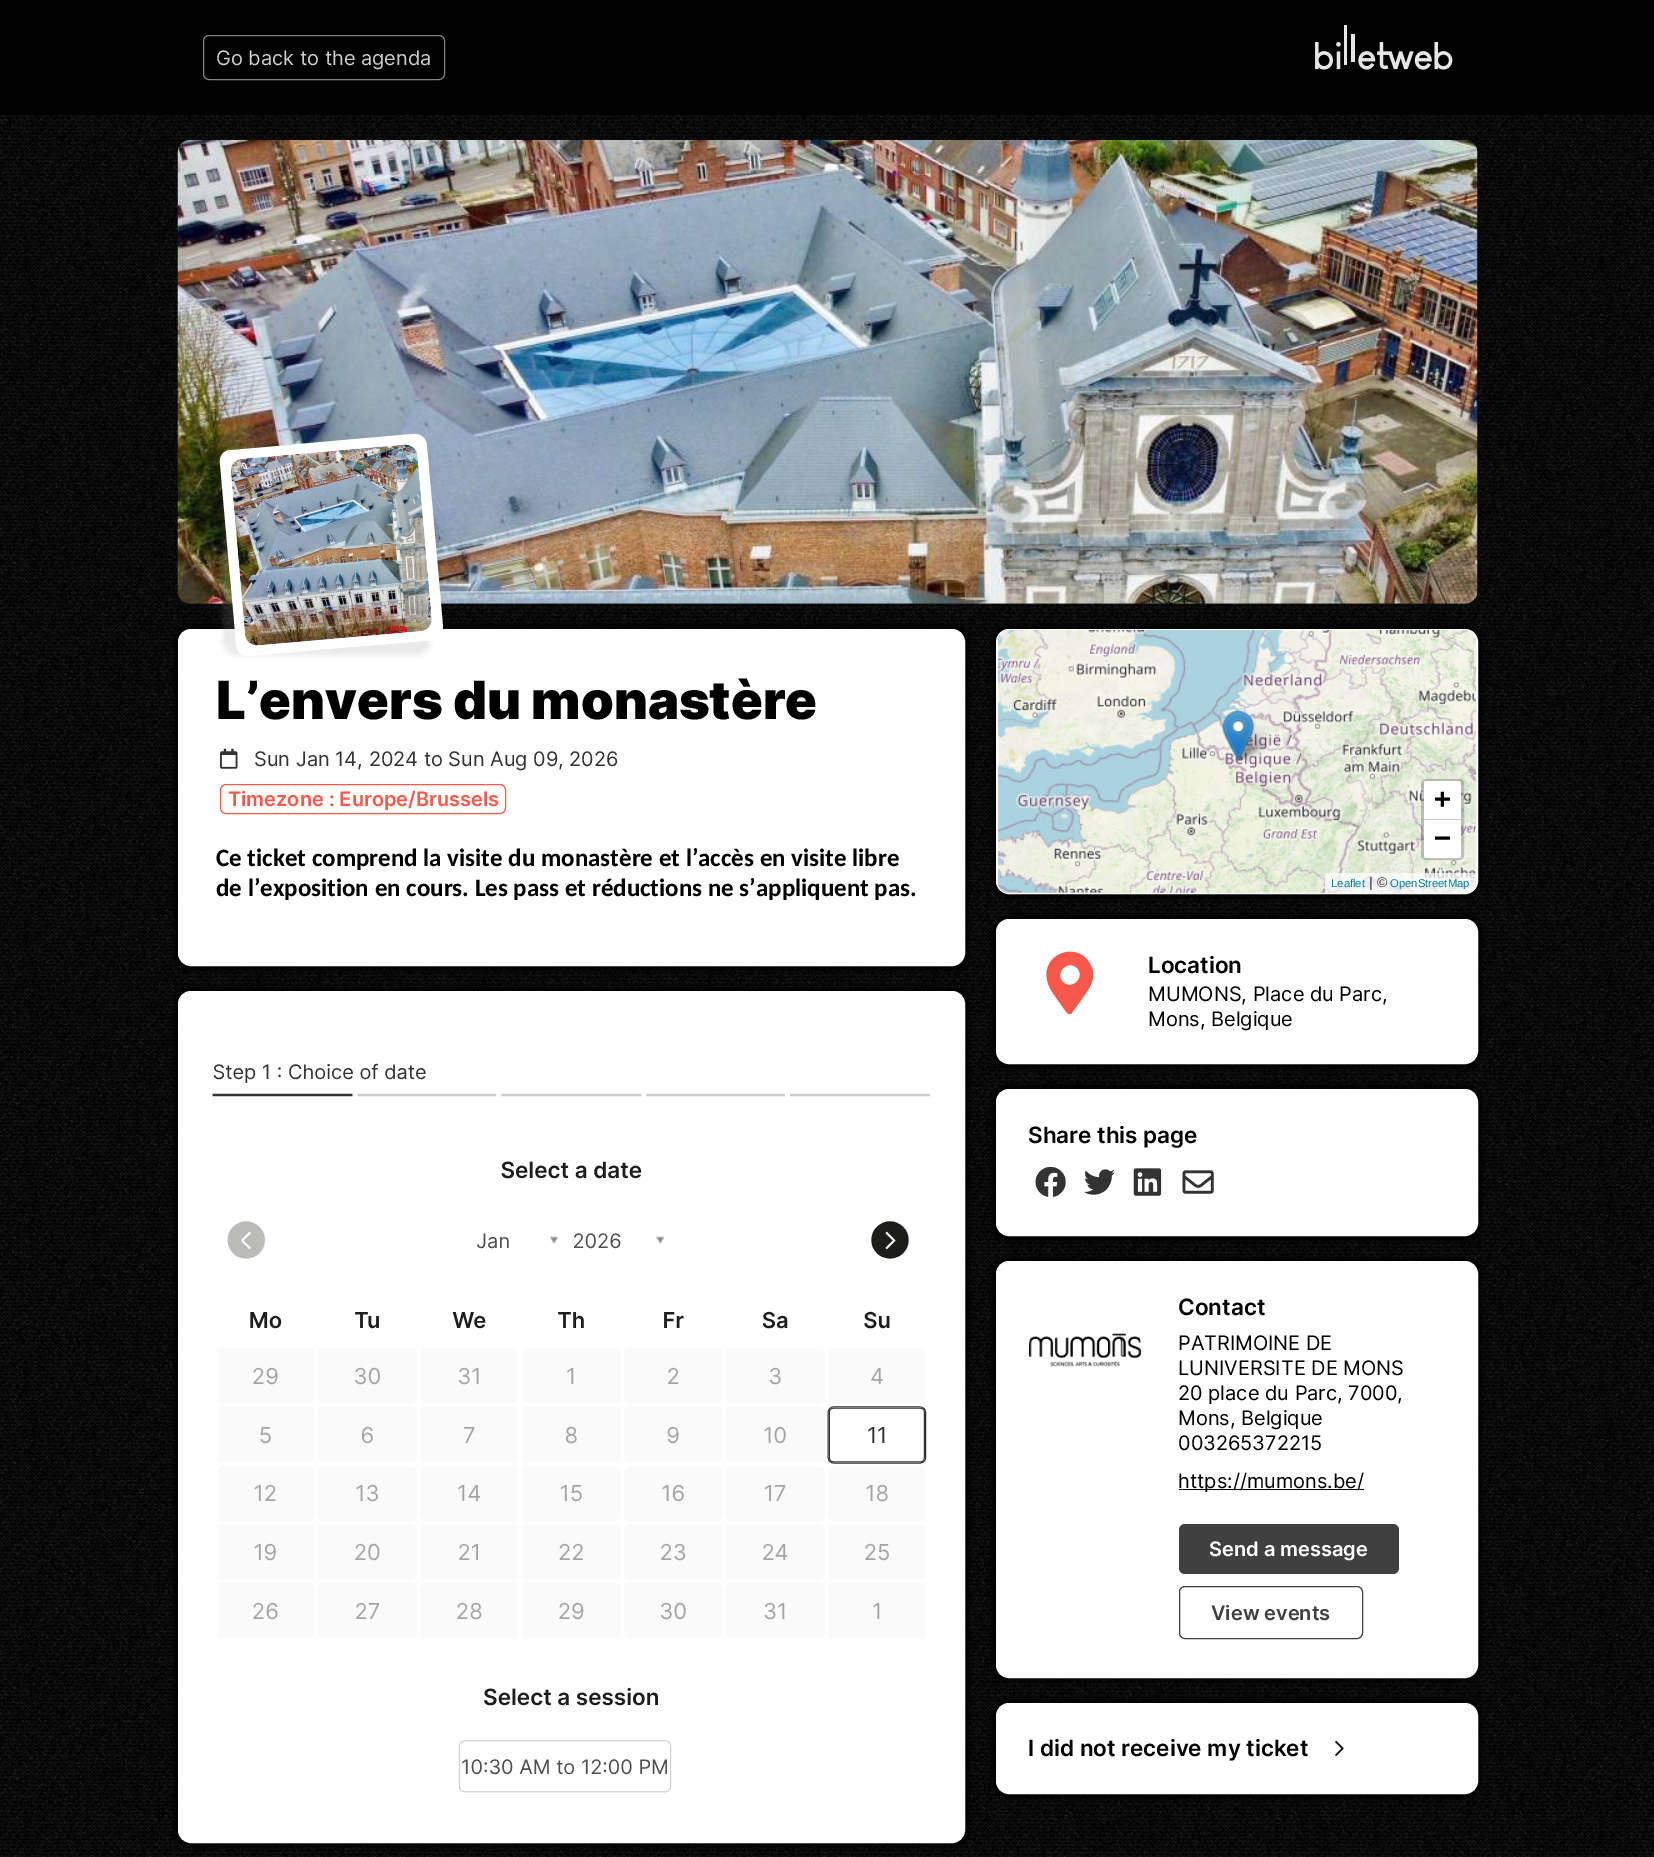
%!PS
<< /PageSize [1654 1857] /PageUsesTransparency true >> setpagedevice
/rgb { 3 { 255 div 3 1 roll } repeat setrgbcolor } def
/font { [ exch dup neg 0 0 3 -1 roll 0 0 ] selectfont } def
/text { moveto show } def
/alpha { dup .setfillconstantalpha .setstrokeconstantalpha } def
/roundrect { 5 dict begin { /r /h /w /y /x } { exch def } forall
  x r add y moveto x w add y 2 copy h add r arct x w add y h add x 1 index r arct
  x y h add x y r arct x y 2 copy exch w add exch r arct closepath end } def
/shadow { 12 dict begin { /a /b /q /h /w /y /x } { exch def } forall gsave /was 0 def
  9 -2 -9 { dup b mul 4 div /e exch def 1 sub .425 mul 2.718 exch exp 1 add a .99 .min exch div /now exch def
    1 1 now sub 1 was sub div sub alpha /was now def
    w h .min e 2 mul add 0 gt { x e sub y e sub w e 2 mul add h e 2 mul add
      q e add b .6 mul add w h .min 2 div e add .min 0 .max roundrect fill } if } for grestore end } def
/picture { 5 dict begin { /h /w /y /x /name } { exch def } forall
  gsave x y translate w h scale
  w h 8 [w 0 0 h 0 0] name (r) file false 3 colorimage grestore end } def
0 .pushpdf14devicefilter
0 1857 translate 1 -1 scale
4 setmiterlimit
0 0 0 rgb
0 0 1654 1857 rectfill
(img_01.rgb) 0 115 1654 1742 picture
128 128 128 rgb
203.5 35.5 241 44 5.5 roundrect stroke
(img_02.rgb) 1315 25 138 45 picture
(img_03.rgb) 177 140 1301 464 picture
0 0 0 rgb
174 625 795 345 16 3 1 shadow
255 255 255 rgb
178.5 629.5 786 336 12.5 roundrect gsave fill grestore
stroke
144 144 144 rgb
223 448 207 207 13 2.5 0.19 shadow
255 255 255 rgb
231 450 moveto 182 -16 rlineto 7 -1 13 4 14 11 rcurveto 16 182 rlineto 0 7 -5 13 -12 13 rcurveto -182 16 rlineto -6 1 -13 -4 -13 -11 rcurveto -16 -182 rlineto -1 -7 4 -13 11 -13 rcurveto closepath fill
(img_04.rgb) 230 444 202 202 picture
(img_05.rgb) 220 748 18 21 picture
247 88 76 rgb
220.5 784.5 285 29 5.5 roundrect stroke
0 0 0 rgb
174 988 795 858 16 3 1 shadow
255 255 255 rgb
178.5 991.5 786 851 12.5 roundrect gsave fill grestore
stroke
(img_06.rgb) 212 1063 718 730 picture
0 0 0 rgb
993 625 488 273 16 3 1 shadow
255 255 255 rgb
996.5 629.5 481 264 12.5 roundrect gsave fill grestore
stroke
221 221 221 rgb
998 630 478 263 11 roundrect fill
(img_07.rgb) 998 630 127 199 picture
(img_08.rgb) 1124 630 321 199 picture
(img_09.rgb) 1444 630 32 199 picture
(img_10.rgb) 998 829 127 64 picture
(img_11.rgb) 1125 829 320 64 picture
(img_12.rgb) 1445 829 31 64 picture
(img_14.rgb) 1233 726 38 36 picture
(img_13.rgb) 1222 710 33 52 picture
0.2 alpha
0 0 0 rgb
3 setlinewidth
1422.5 780.5 40 78 3.5 roundrect stroke
1 alpha
255 255 255 rgb
1426.5 781 moveto 32 0 rlineto 1.5 0 2.5 1 2.5 2.5 rcurveto 0 36.5 rlineto -37 0 rlineto 0 -36.5 rlineto 0 -1.5 1 -2.5 2.5 -2.5 rcurveto closepath fill
204 204 204 rgb
1424 819 37 1 rectfill
255 255 255 rgb
1424 820 moveto 37 0 rlineto 0 35.5 rlineto 0 1.5 -1 2.5 -2.5 2.5 rcurveto -32 0 rlineto -1.5 0 -2.5 -1 -2.5 -2.5 rcurveto closepath fill
0.7 alpha
1325 873 moveto 151 0 rlineto 0 9 rlineto 0 6 -5 11 -11 11 rcurveto -140 0 rlineto closepath fill
1 alpha
0 0 0 rgb
993 915 488 153 16 3 1 shadow
255 255 255 rgb
996.5 919.5 481 144 12.5 roundrect gsave fill grestore
1 setlinewidth
stroke
247 88 76 rgb
1067 1013 moveto -10 -14 rlineto -4 -6 -9 -12 -10 -20 rcurveto -5 -24 28 -38 42 -17 rcurveto 11 16 -2 29 -10 41 rcurveto -8 11 rlineto -1 0 -3 0 -4 -1 rcurveto closepath 1063 982 moveto 9 9 23 -5 14 -14 rcurveto -9 -9 -23 5 -14 14 rcurveto closepath fill
0 0 0 rgb
993 1085 488 155 16 3 1 shadow
255 255 255 rgb
996.5 1089.5 481 146 12.5 roundrect gsave fill grestore
stroke
(img_15.rgb) 1035 1166 31 31 picture
(img_16.rgb) 1084 1169 31 26 picture
(img_17.rgb) 1133 1168 29 28 picture
(img_18.rgb) 1182 1170 32 24 picture
0 0 0 rgb
993 1258 488 423 16 3 1 shadow
255 255 255 rgb
996.5 1261.5 481 416 12.5 roundrect gsave fill grestore
stroke
(img_19.rgb) 1028 1333 114 34 picture
0 0 0 rgb
1179 1489 185 1 rectfill
64 64 64 rgb
1179 1524 220 50 6 roundrect fill
1179.5 1586.5 183 52 5.5 roundrect stroke
0 0 0 rgb
993 1699 488 99 16 3 1 shadow
255 255 255 rgb
996.5 1703.5 481 90 12.5 roundrect gsave fill grestore
stroke
(img_20.rgb) 1335 1740 9 16 picture
/Inter-Regular 20 font
204 204 204 rgb
(Go back to the agenda) 216 65 text
/Inter-Black 52.5 font
0 0 0 rgb
(L’envers du monastère) 216 719 text
/Inter-Regular 20 font
51 51 51 rgb
(Sun Jan 14, 2024 to Sun Aug 09, 2026) 254 766 text
/Inter-SemiBold 20 font
247 88 76 rgb
(Timezone : Europe/Brussels) 228 806 text
/Carlito-Bold 25 font
0 0 0 rgb
(Ce ticket comprend la visite du monastère et l’accès en visite libre) 216 866 text
(de l’exposition en cours. Les pass et réductions ne s’appliquent pas.) 216 896 text
/DejaVuSansMono-Bold 28 font
(+) 1434 808 text
(−) 1434 847 text
/LiberationSans-Regular 11.25 font
0 120 168 rgb
(Leaflet) 1331 887 text
/LiberationSans-Regular 14 font
51 51 51 rgb
(| ©) 1369 887 text
/LiberationSans-Regular 11.25 font
0 120 168 rgb
(OpenStreetMap) 1390 887 text
/Inter-SemiBold 22.5 font
0 0 0 rgb
(Location) 1148 973 text
/Inter-Regular 20 font
(MUMONS, Place du Parc,) 1148 1001 text
(Mons, Belgique) 1148 1026 text
/Inter-SemiBold 22.5 font
(Share this page) 1028 1143 text
(Contact) 1178 1315 text
/Inter-Regular 20 font
(PATRIMOINE DE) 1178 1350 text
(LUNIVERSITE DE MONS) 1178 1375 text
(20 place du Parc, 7000,) 1178 1400 text
(Mons, Belgique) 1178 1425 text
(003265372215) 1178 1450 text
(https://mumons.be/) 1178 1488 text
/Inter-SemiBold 20 font
255 255 255 rgb
(Send a message) 1209 1556 text
64 64 64 rgb
(View events) 1211 1620 text
/Inter-SemiBold 22.5 font
0 0 0 rgb
(I did not receive my ticket) 1028 1756 text
.poppdf14devicefilter showpage
